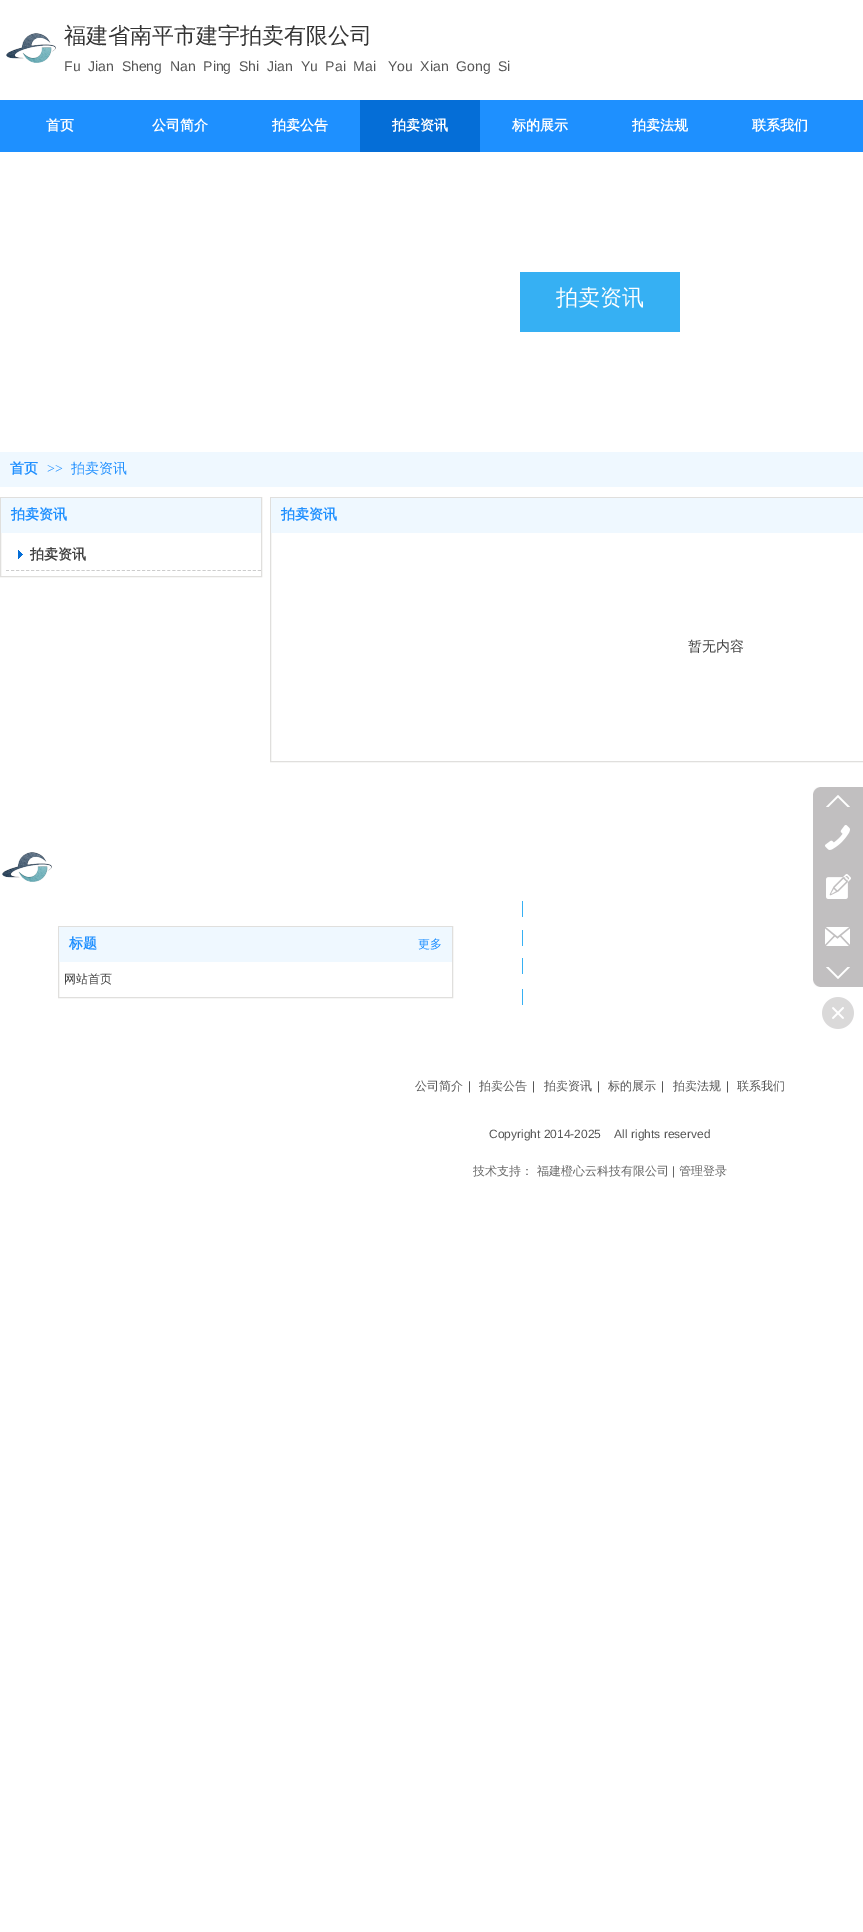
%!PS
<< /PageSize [863 1932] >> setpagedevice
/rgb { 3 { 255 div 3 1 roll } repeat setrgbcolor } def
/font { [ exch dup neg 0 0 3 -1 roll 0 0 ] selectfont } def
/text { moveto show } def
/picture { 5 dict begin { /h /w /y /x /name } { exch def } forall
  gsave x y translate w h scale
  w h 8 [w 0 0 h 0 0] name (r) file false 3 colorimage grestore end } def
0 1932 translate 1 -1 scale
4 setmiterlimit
255 255 255 rgb
0 0 863 1932 rectfill
(img_01.rgb) 6 33 50 30 picture
30 144 255 rgb
0 100 863 52 rectfill
5 110 215 rgb
360 100 120 52 rectfill
54 176 243 rgb
520 272 160 60 rectfill
239 248 255 rgb
0 452 863 35 rectfill
224 223 221 rgb
0.5 497.5 261 79 rectstroke
239 248 255 rgb
1 498 260 35 rectfill
gsave
6 538 255 33 rectclip
204 204 204 rgb
[3 2.04] 0 setdash
6 570.5 moveto 260 0 rlineto stroke
grestore
(img_02.rgb) 18 550 5 9 picture
224 223 221 rgb
270.5 497.5 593 264 rectstroke
239 248 255 rgb
271 498 592 35 rectfill
(img_01.rgb) 2 852 50 30 picture
54 176 243 rgb
522 901 1 16 rectfill
224 223 221 rgb
58.5 926.5 394 71 rectstroke
239 248 255 rgb
59 927 393 35 rectfill
54 176 243 rgb
522 930 1 16 rectfill
522 958 1 16 rectfill
522 989 1 16 rectfill
(img_03.rgb) 813 787 7 7 picture
193 191 192 rgb
820 787 43 7 rectfill
813 794 50 186 rectfill
(img_04.rgb) 826 795 24 12 picture
(img_05.rgb) 825 825 25 25 picture
(img_06.rgb) 826 874 25 25 picture
(img_07.rgb) 825 927 25 19 picture
(img_08.rgb) 826 967 24 12 picture
(img_09.rgb) 813 980 7 7 picture
820 980 43 7 rectfill
(img_10.rgb) 822 997 32 32 picture
/WenQuanYiZenHei-Medium 22 font
51 51 51 rgb
(福建省南平市建宇拍卖有限公司) 64 43 text
/LiberationSans-Regular 14 font
85 85 85 rgb
(Fu  Jian  Sheng  Nan  Ping  Shi  Jian  Yu  Pai  Mai   You  Xian  Gong  Si) 64 71 text
/WenQuanYiZenHei-Bold 14 font
255 255 255 rgb
(首页) 46 130 text
(公司简介) 152 130 text
(拍卖公告) 272 130 text
(拍卖资讯) 392 130 text
(标的展示) 512 130 text
(拍卖法规) 632 130 text
(联系我们) 752 130 text
/WenQuanYiZenHei-Medium 22 font
(拍卖资讯) 556 305 text
/WenQuanYiZenHei-Bold 14 font
32 144 255 rgb
(首页) 10 473 text
/LiberationSerif-Regular 14 font
(>>) 47 473 text
/WenQuanYiZenHei-Medium 14 font
(拍卖资讯) 71 473 text
/WenQuanYiZenHei-Bold 14 font
(拍卖资讯) 11 519 text
67 67 67 rgb
(拍卖资讯) 30 559 text
32 144 255 rgb
(拍卖资讯) 281 519 text
/WenQuanYiZenHei-Medium 14 font
67 67 67 rgb
(暂无内容) 688 651 text
/WenQuanYiZenHei-Bold 14 font
32 144 255 rgb
(标题) 69 948 text
/WenQuanYiZenHei-Medium 12 font
(更多) 418 948 text
67 67 67 rgb
(网站首页) 64 983 text
85 85 85 rgb
(公司简介) 415 1090 text
/LiberationSans-Regular 12 font
(|) 468 1090 text
/WenQuanYiZenHei-Medium 12 font
(拍卖公告) 479 1090 text
/LiberationSans-Regular 12 font
(|) 532 1090 text
/WenQuanYiZenHei-Medium 12 font
(拍卖资讯) 544 1090 text
/LiberationSans-Regular 12 font
(|) 597 1090 text
/WenQuanYiZenHei-Medium 12 font
(标的展示) 608 1090 text
/LiberationSans-Regular 12 font
(|) 661 1090 text
/WenQuanYiZenHei-Medium 12 font
(拍卖法规) 673 1090 text
/LiberationSans-Regular 12 font
(|) 726 1090 text
/WenQuanYiZenHei-Medium 12 font
(联系我们) 737 1090 text
/LiberationSans-Regular 12 font
(Copyright 2014-2025    All rights reserved) 489 1138 text
/WenQuanYiZenHei-Medium 12 font
102 102 102 rgb
(技术支持： 福建橙心云科技有限公司) 473 1175 text
/LiberationSans-Regular 12 font
(|) 672 1175 text
/WenQuanYiZenHei-Medium 12 font
(管理登录) 679 1175 text
showpage
